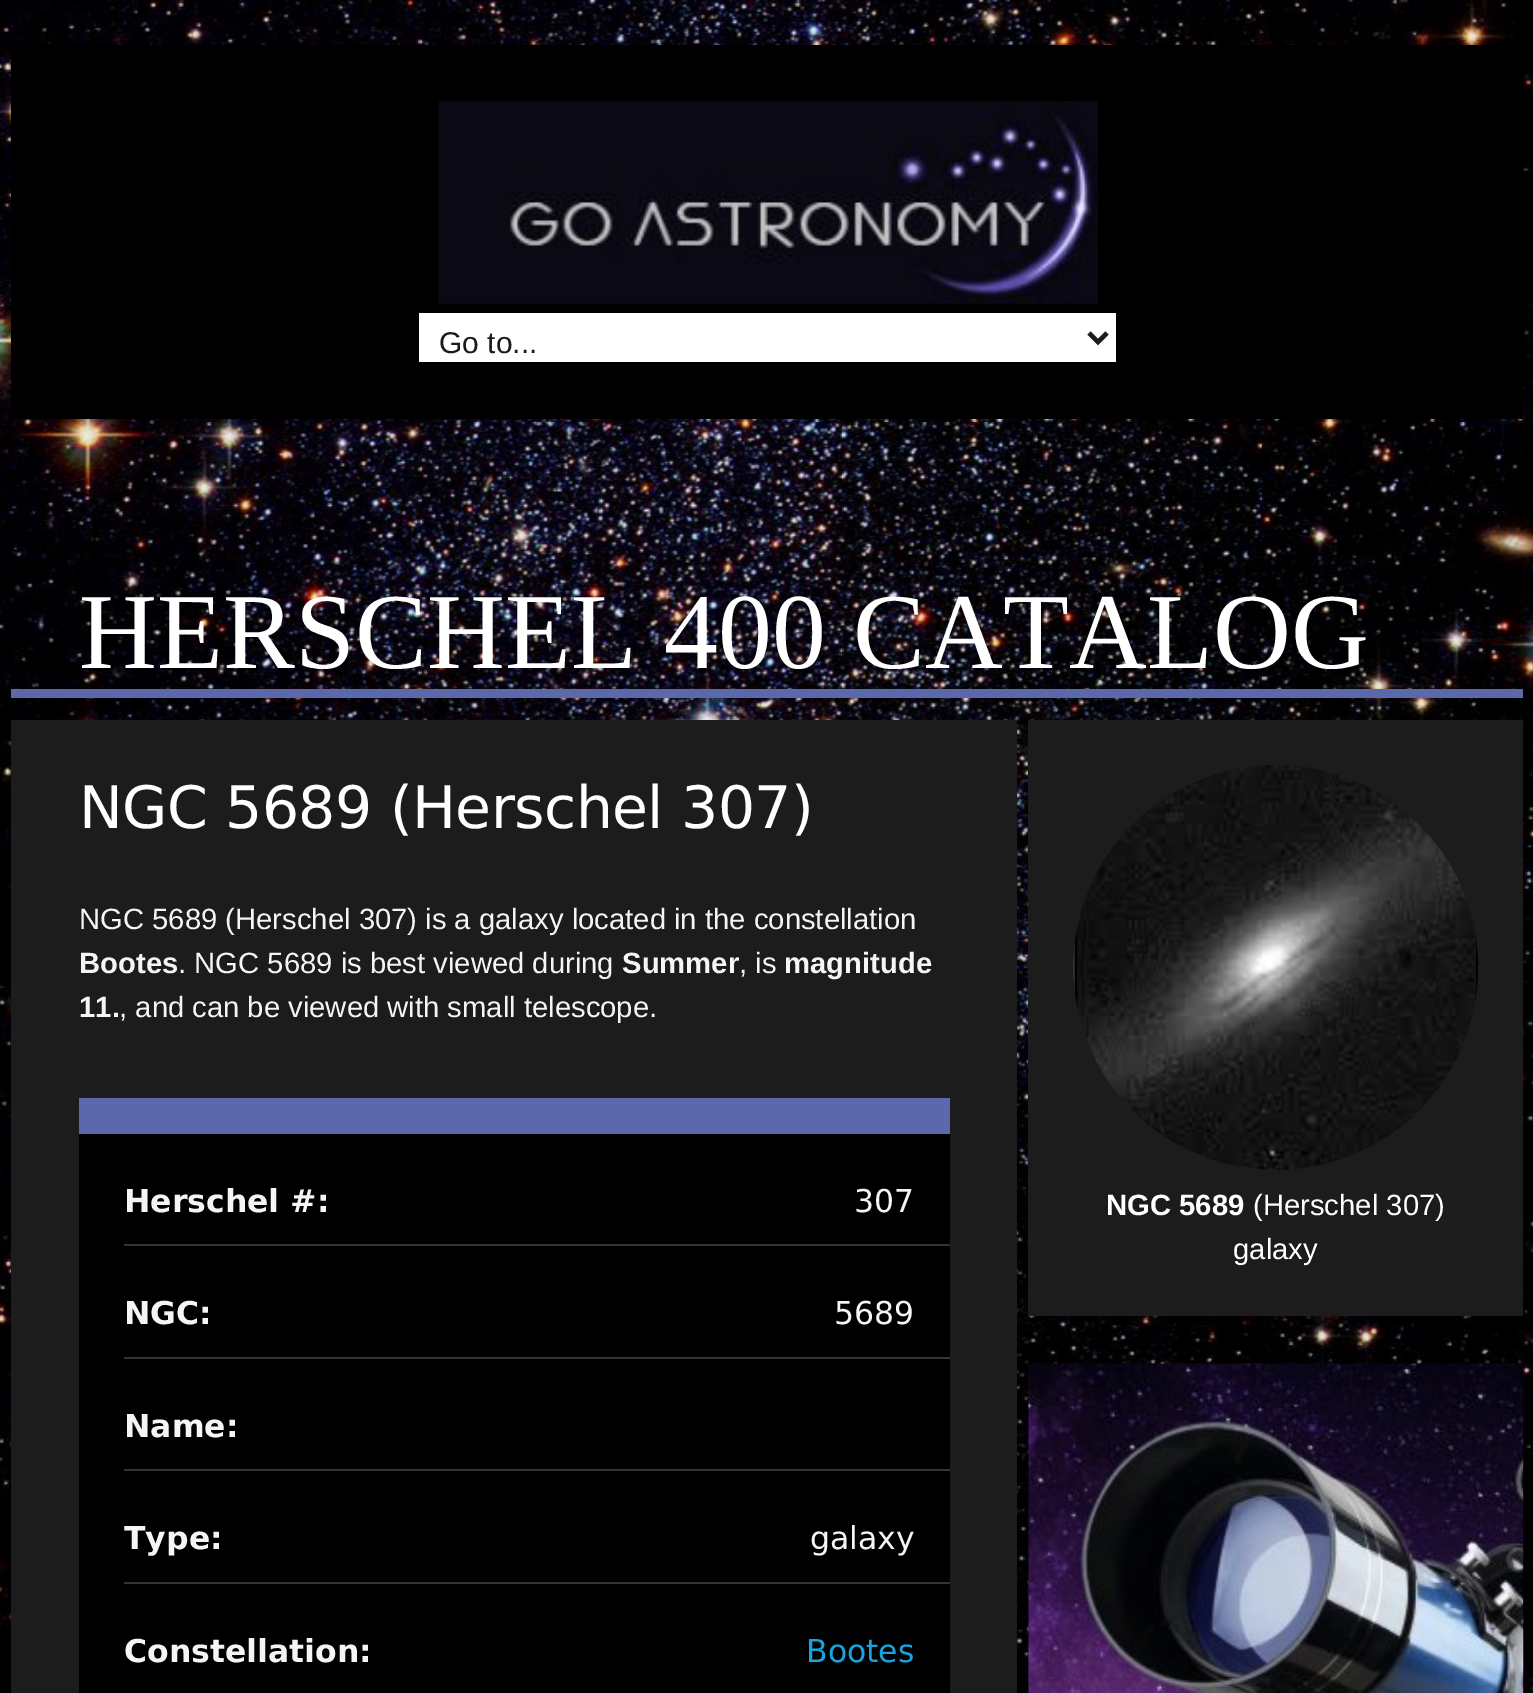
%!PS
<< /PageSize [1533 1693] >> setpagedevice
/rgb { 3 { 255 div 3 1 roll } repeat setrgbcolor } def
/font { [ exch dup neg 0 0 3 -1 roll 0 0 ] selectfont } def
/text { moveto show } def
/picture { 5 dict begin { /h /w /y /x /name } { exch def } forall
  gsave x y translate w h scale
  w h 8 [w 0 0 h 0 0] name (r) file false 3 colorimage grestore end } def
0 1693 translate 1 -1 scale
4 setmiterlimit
255 255 255 rgb
0 0 1533 1693 rectfill
(img_01.rgb) 0 0 1533 1693 picture
0 0 0 rgb
11 45 1512 374 rectfill
(img_02.rgb) 438 101 660 203 picture
255 255 255 rgb
419 313 697 49 rectfill
28 28 28 rgb
4.5 setlinewidth
1089 333 moveto 9 9 rlineto 9 -9 rlineto stroke
91 104 171 rgb
11 689 1512 9 rectfill
28 28 28 rgb
11 720 1006 973 rectfill
91 104 171 rgb
79 1098 871 36 rectfill
0 0 0 rgb
79 1134 871 559 rectfill
51 51 51 rgb
124 1244 826 2 rectfill
124 1357 826 2 rectfill
124 1469 826 2 rectfill
124 1582 826 2 rectfill
28 28 28 rgb
1028 720 495 596 rectfill
(img_03.rgb) 1073 765 405 405 picture
(img_04.rgb) 1028 1363 496 330 picture
/LiberationSans-Regular 30 font
(Go to...) 439 353 text
/LiberationSerif-Regular 108 font
255 255 255 rgb
(HERSCHEL 400 CATALOG) 79 668 text
/DejaVuSans-Regular 58.5 font
79 828 moveto -0.6 0 (NGC 5689 \(Herschel 307\)) ashow
/LiberationSans-Regular 29.25 font
245 245 245 rgb
(NGC 5689 \(Herschel 307\) is a galaxy located in the constellation) 79 929 text
/LiberationSans-Bold 29.25 font
(Bootes) 79 973 text
/LiberationSans-Regular 29.25 font
(. NGC 5689 is best viewed during) 178 973 text
/LiberationSans-Bold 29.25 font
(Summer) 622 973 text
/LiberationSans-Regular 29.25 font
(, is) 739 973 text
/LiberationSans-Bold 29.25 font
(magnitude) 784 973 text
(11.) 79 1017 text
/LiberationSans-Regular 29.25 font
(, and can be viewed with small telescope.) 119 1017 text
/DejaVuSans-Bold 31.5 font
(Herschel #:) 124 1212 text
/DejaVuSans-Regular 31.5 font
(307) 854 1212 text
/DejaVuSans-Bold 31.5 font
(NGC:) 124 1324 text
/DejaVuSans-Regular 31.5 font
(5689) 834 1324 text
/DejaVuSans-Bold 31.5 font
(Name:) 124 1437 text
(Type:) 124 1549 text
/DejaVuSans-Regular 31.5 font
(galaxy) 810 1549 text
/DejaVuSans-Bold 31.5 font
(Constellation:) 124 1662 text
/DejaVuSans-Regular 31.5 font
25 162 222 rgb
(Bootes) 806 1662 text
/LiberationSans-Bold 29.25 font
255 255 255 rgb
(NGC 5689) 1106 1215 text
/LiberationSans-Regular 29.25 font
(\(Herschel 307\)) 1253 1215 text
(galaxy) 1233 1259 text
showpage
